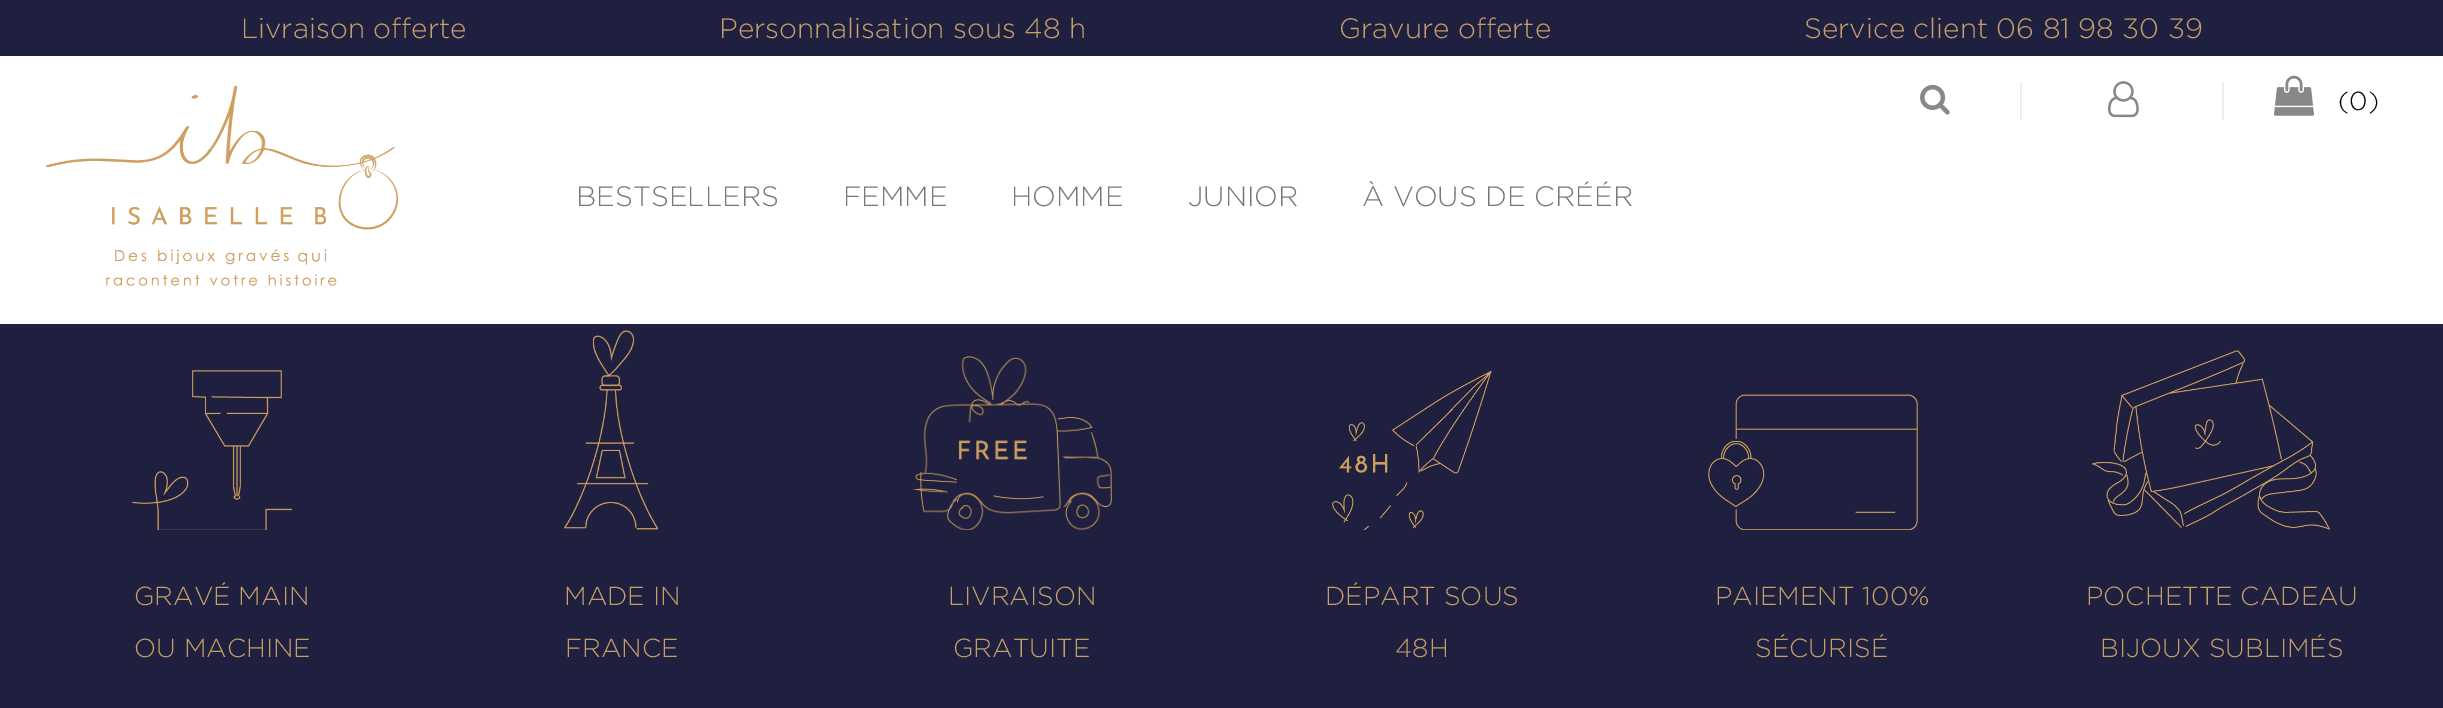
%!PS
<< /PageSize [2443 708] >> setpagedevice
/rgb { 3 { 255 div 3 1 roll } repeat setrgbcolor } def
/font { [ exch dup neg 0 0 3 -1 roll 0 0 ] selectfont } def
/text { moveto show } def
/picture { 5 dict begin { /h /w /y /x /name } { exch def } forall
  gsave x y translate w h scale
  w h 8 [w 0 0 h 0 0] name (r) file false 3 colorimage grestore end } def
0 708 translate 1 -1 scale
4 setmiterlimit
31 32 63 rgb
0 0 2443 708 rectfill
255 255 255 rgb
0 56 2443 268 rectfill
(img_01.rgb) 46 86 352 200 picture
(img_02.rgb) 1920 84 30 31 picture
238 238 238 rgb
2222 82 2 38 rectfill
2020 82 2 38 rectfill
(img_03.rgb) 2108 81 31 37 picture
(img_04.rgb) 2274 75 40 41 picture
(img_05.rgb) 132 370 160 160 picture
(img_06.rgb) 564 330 94 200 picture
(img_07.rgb) 913 356 199 174 picture
(img_08.rgb) 1332 370 160 160 picture
(img_09.rgb) 1708 394 210 136 picture
(img_10.rgb) 2092 350 238 180 picture
/Gotham-Light 28 font
198 160 104 rgb
(Livraison offerte) 241 38 text
(Personnalisation sous 48 h) 719 38 text
(Gravure offerte) 1339 38 text
(Service client 06 81 98 30 39) 1804 38 text
/Gotham-Light 26 font
0 0 0 rgb
(\(0\)) 2338 110 text
/Gotham-Light 28 font
119 119 119 rgb
(BESTSELLERS) 576 206 text
(FEMME) 843 206 text
(HOMME) 1011 206 text
(JUNIOR) 1188 206 text
(À VOUS DE CRÉÉR) 1362 206 text
/Gotham-Light 26 font
198 160 104 rgb
(GRAVÉ MAIN) 134 605 text
(OU MACHINE) 134 657 text
(MADE IN) 564 605 text
(FRANCE) 565 657 text
(LIVRAISON) 948 605 text
(GRATUITE) 953 657 text
(DÉPART SOUS) 1325 605 text
(48H) 1395 657 text
(PAIEMENT 100%) 1715 605 text
(SÉCURISÉ) 1755 657 text
(POCHETTE CADEAU) 2086 605 text
(BIJOUX SUBLIMÉS) 2100 657 text
showpage
